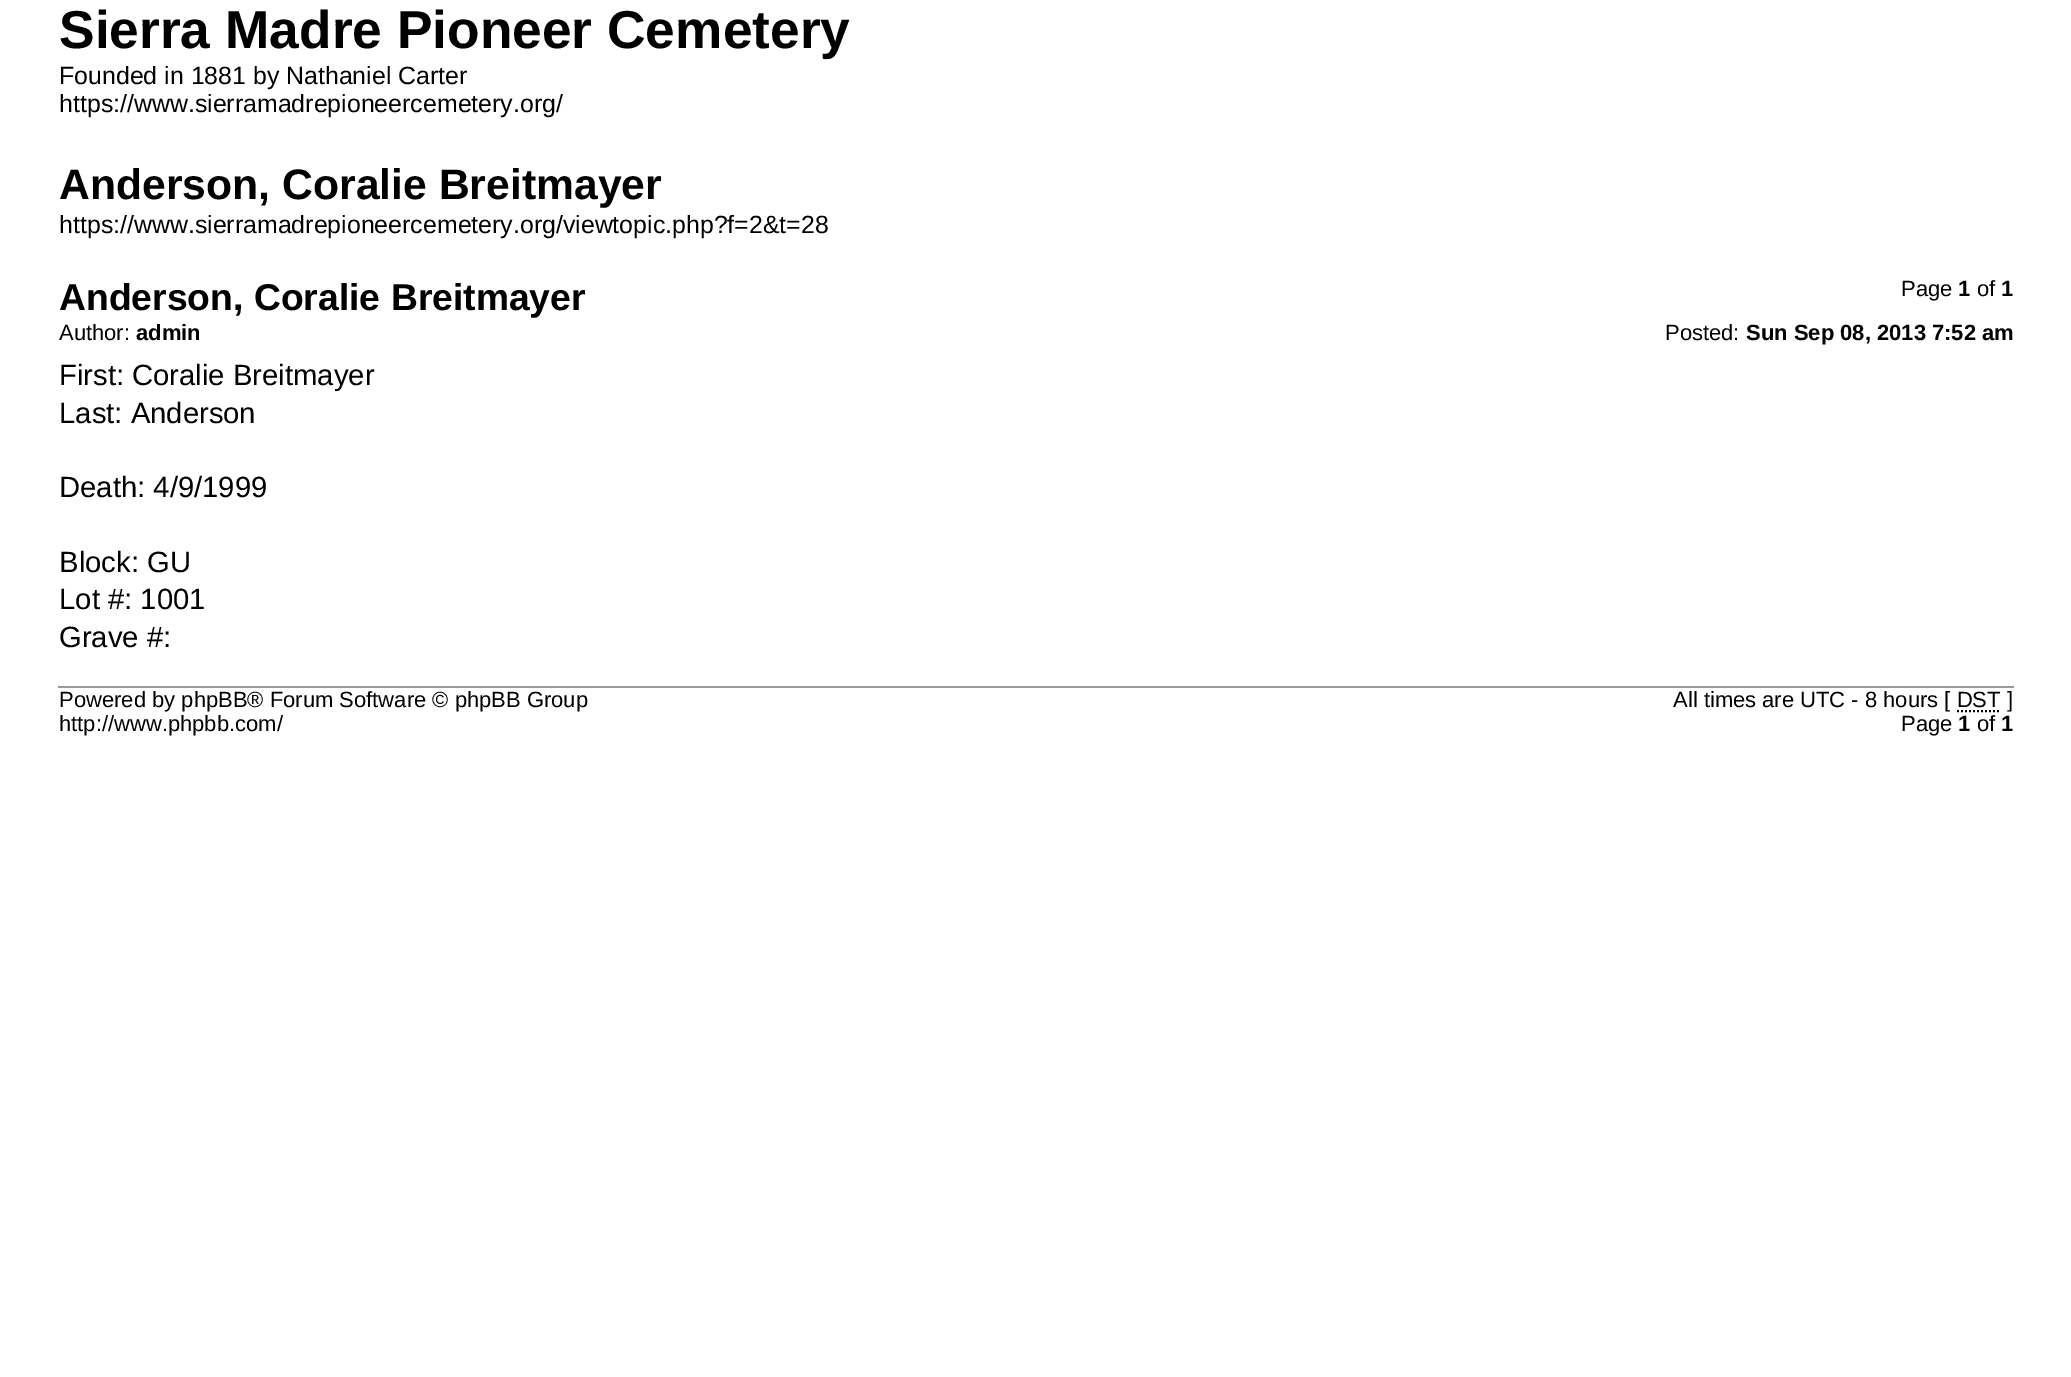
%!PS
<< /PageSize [2071 1377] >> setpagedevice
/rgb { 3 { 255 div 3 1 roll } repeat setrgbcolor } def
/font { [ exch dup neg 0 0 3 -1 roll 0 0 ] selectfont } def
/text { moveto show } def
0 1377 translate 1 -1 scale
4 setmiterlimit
255 255 255 rgb
0 0 2071 1377 rectfill
153 153 153 rgb
58 686 1956 2 rectfill
0 0 0 rgb
2 setlinewidth
[2 2] 0 setdash
1957 711 moveto 44 0 rlineto stroke
/LiberationSans-Bold 53.3 font
(Sierra Madre Pioneer Cemetery) 59 48 text
/LiberationSans-Regular 24.9 font
(Founded in 1881 by Nathaniel Carter) 59 84 text
(https://www.sierramadrepioneercemetery.org/) 59 112 text
/LiberationSans-Bold 42.7 font
(Anderson, Coralie Breitmayer) 59 199 text
/LiberationSans-Regular 24.9 font
(https://www.sierramadrepioneercemetery.org/viewtopic.php?f=2&t=28) 59 233 text
/LiberationSans-Regular 22 font
(Page) 1901 296 text
/LiberationSans-Bold 22 font
(1) 1958 296 text
/LiberationSans-Regular 22 font
(of) 1977 296 text
/LiberationSans-Bold 22 font
(1) 2001 296 text
/LiberationSans-Bold 37.3 font
(Anderson, Coralie Breitmayer) 59 310 text
/LiberationSans-Regular 22 font
(Author:) 59 340 text
/LiberationSans-Bold 22 font
(admin) 136 340 text
/LiberationSans-Regular 22 font
(Posted:) 1665 340 text
/LiberationSans-Bold 22 font
(Sun Sep 08, 2013 7:52 am) 1746 340 text
/LiberationSans-Regular 29.25 font
(First: Coralie Breitmayer) 59 385 text
(Last: Anderson) 59 423 text
(Death: 4/9/1999) 59 497 text
(Block: GU) 59 572 text
(Lot #: 1001) 59 609 text
(Grave #:) 59 647 text
/LiberationSans-Regular 22 font
(Powered by phpBB® Forum Software © phpBB Group) 59 707 text
(http://www.phpbb.com/) 59 731 text
(All times are UTC - 8 hours [ DST ]) 1673 707 text
(Page) 1901 731 text
/LiberationSans-Bold 22 font
(1) 1958 731 text
/LiberationSans-Regular 22 font
(of) 1977 731 text
/LiberationSans-Bold 22 font
(1) 2001 731 text
showpage
